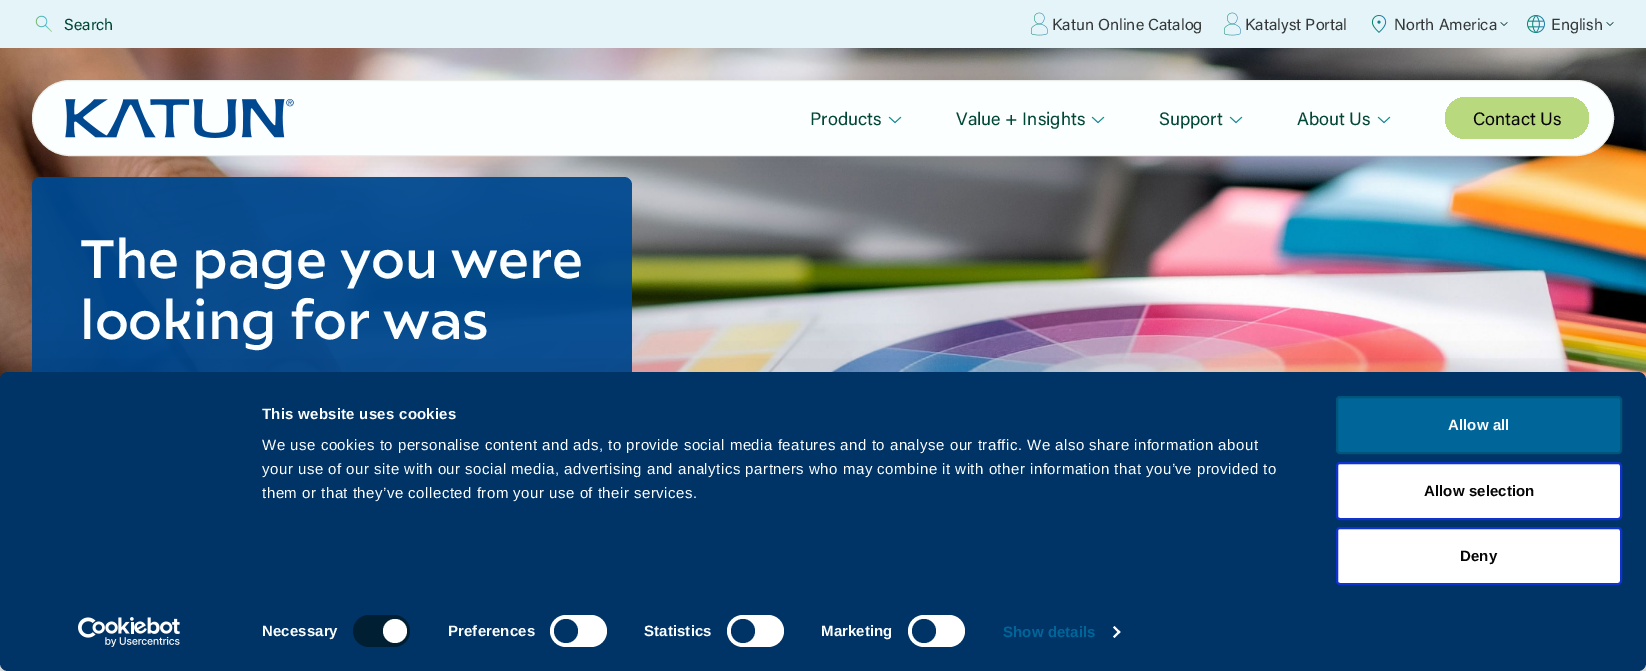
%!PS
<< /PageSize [1646 671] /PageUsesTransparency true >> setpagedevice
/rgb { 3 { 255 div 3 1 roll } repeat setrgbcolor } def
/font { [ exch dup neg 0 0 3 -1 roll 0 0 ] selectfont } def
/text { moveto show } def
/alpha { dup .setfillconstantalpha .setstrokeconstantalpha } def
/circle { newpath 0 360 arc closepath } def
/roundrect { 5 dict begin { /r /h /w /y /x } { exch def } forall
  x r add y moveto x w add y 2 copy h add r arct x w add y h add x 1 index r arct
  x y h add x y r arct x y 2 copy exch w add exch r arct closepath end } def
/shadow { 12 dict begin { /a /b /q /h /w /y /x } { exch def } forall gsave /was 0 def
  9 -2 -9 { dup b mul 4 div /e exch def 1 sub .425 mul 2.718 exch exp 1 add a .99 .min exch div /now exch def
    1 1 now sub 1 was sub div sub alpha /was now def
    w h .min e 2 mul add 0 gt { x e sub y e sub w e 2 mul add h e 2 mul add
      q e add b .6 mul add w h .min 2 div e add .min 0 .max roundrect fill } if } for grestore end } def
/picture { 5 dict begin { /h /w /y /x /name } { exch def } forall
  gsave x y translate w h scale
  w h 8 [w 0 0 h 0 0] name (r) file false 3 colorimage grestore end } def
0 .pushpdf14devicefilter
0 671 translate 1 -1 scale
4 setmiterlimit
252 255 255 rgb
0 0 1646 671 rectfill
228 244 249 rgb
0 0 1646 48 rectfill
(img_01.rgb) 35 15 18 17 picture
(img_02.rgb) 1031 12 17 24 picture
(img_02.rgb) 1224 12 17 24 picture
(img_03.rgb) 1371 15 16 18 picture
(img_04.rgb) 1500 22 8 4 picture
(img_05.rgb) 1527 15 18 18 picture
(img_04.rgb) 1606 22 8 4 picture
(img_08.rgb) 0 48 1646 332 picture
0.95 alpha
0 73 144 rgb
32 177 600 421 8 roundrect fill
1 alpha
5 5 5 rgb
47 94 1582 76 38 10 0.06 shadow
252 255 255 rgb
32.5 80.5 1581 75 37.5 roundrect gsave fill grestore
234 237 232 rgb
stroke
(img_06.rgb) 65 99 229 39 picture
(img_07.rgb) 888 116 14 8 picture
(img_07.rgb) 1091 116 14 8 picture
(img_07.rgb) 1229 116 14 8 picture
(img_07.rgb) 1377 116 14 8 picture
gsave 1445 97 144 42 21 roundrect clip newpath
<< /ShadingType 2 /ColorSpace /DeviceRGB /Coords [1445 118 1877 118] /Extend [true true] /Function << /FunctionType 3 /Domain [0 1] /Functions [<< /FunctionType 2 /Domain [0 1] /C0 [0.725 0.851 0.498] /C1 [0.725 0.851 0.498] /N 1 >> << /FunctionType 2 /Domain [0 1] /C0 [0.725 0.851 0.498] /C1 [0.204 0.71 0.875] /N 1 >> << /FunctionType 2 /Domain [0 1] /C0 [0.204 0.71 0.875] /C1 [0.725 0.851 0.498] /N 1 >>] /Bounds [0.33 0.67] /Encode [0 1 0 1 0 1] >> >> shfill grestore
0 0 0 rgb
0 402 1646 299 8 35 0.3 shadow
0 51 102 rgb
0 372 1646 299 8 roundrect fill
0 31 51 rgb
353 615 57 32 16 roundrect fill
255 255 255 rgb
395 631 12 circle fill
550 615 57 32 16 roundrect fill
0 51 102 rgb
566 631 12 circle fill
255 255 255 rgb
727 615 57 32 16 roundrect fill
0 51 102 rgb
743 631 12 circle fill
255 255 255 rgb
908 615 57 32 16 roundrect fill
0 51 102 rgb
924 631 12 circle fill
255 255 255 rgb
1114.5 626 moveto 6 6 rlineto -1.5 1.5 rlineto -6 -6 rlineto closepath fill
1119 630.5 moveto 1.5 1.5 rlineto -6 6 rlineto -1.5 -1.5 rlineto closepath fill
0 102 153 rgb
1337 397 284 56 3 roundrect gsave fill grestore
0 85 122 rgb
2 setlinewidth
stroke
255 255 255 rgb
1337 463 284 56 3 roundrect gsave fill grestore
16 50 207 rgb
stroke
255 255 255 rgb
1337 528 284 56 3 roundrect gsave fill grestore
16 50 207 rgb
stroke
(img_09.rgb) 78 617 102 30 picture
/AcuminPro-Regular 16 font
0 71 53 rgb
(Search) 64 30 text
53 56 56 rgb
(Katun Online Catalog) 1052 30 text
(Katalyst Portal) 1245 30 text
(North America) 1394 30 text
(English) 1551 30 text
/AcuminPro-Regular 18 font
0 71 53 rgb
(Products) 810 125 text
(Value + Insights) 956 125 text
(Support) 1159 125 text
(About Us) 1297 125 text
5 5 5 rgb
(Contact Us) 1473 125 text
/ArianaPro-Medium 54 font
252 255 255 rgb
(The page you were) 80 278 text
(looking for was) 80 339 text
/LiberationSans-Bold 15 font
262 419 moveto 0.25 0 (This website uses cookies) ashow
/LiberationSans-Regular 15 font
262 450 moveto 0.5 0 (We use cookies to personalise content and ads, to provide social media features and to analyse our traffic. We also share information about) ashow
262 474 moveto 0.5 0 (your use of our site with our social media, advertising and analytics partners who may combine it with other information that you’ve provided to) ashow
262 498 moveto 0.5 0 (them or that they’ve collected from your use of their services.) ashow
/LiberationSans-Bold 15 font
262 636 moveto 0.1 0 (Necessary) ashow
448 636 moveto 0.1 0 (Preferences) ashow
644 636 moveto 0.1 0 (Statistics) ashow
821 636 moveto 0.1 0 (Marketing) ashow
0 102 153 rgb
1003 637 moveto 0.1 0 (Show details) ashow
252 255 255 rgb
1448 430 moveto 0.1 0 (Allow all) ashow
5 5 5 rgb
1424 496 moveto 0.1 0 (Allow selection) ashow
1460 561 moveto 0.1 0 (Deny) ashow
.poppdf14devicefilter showpage
